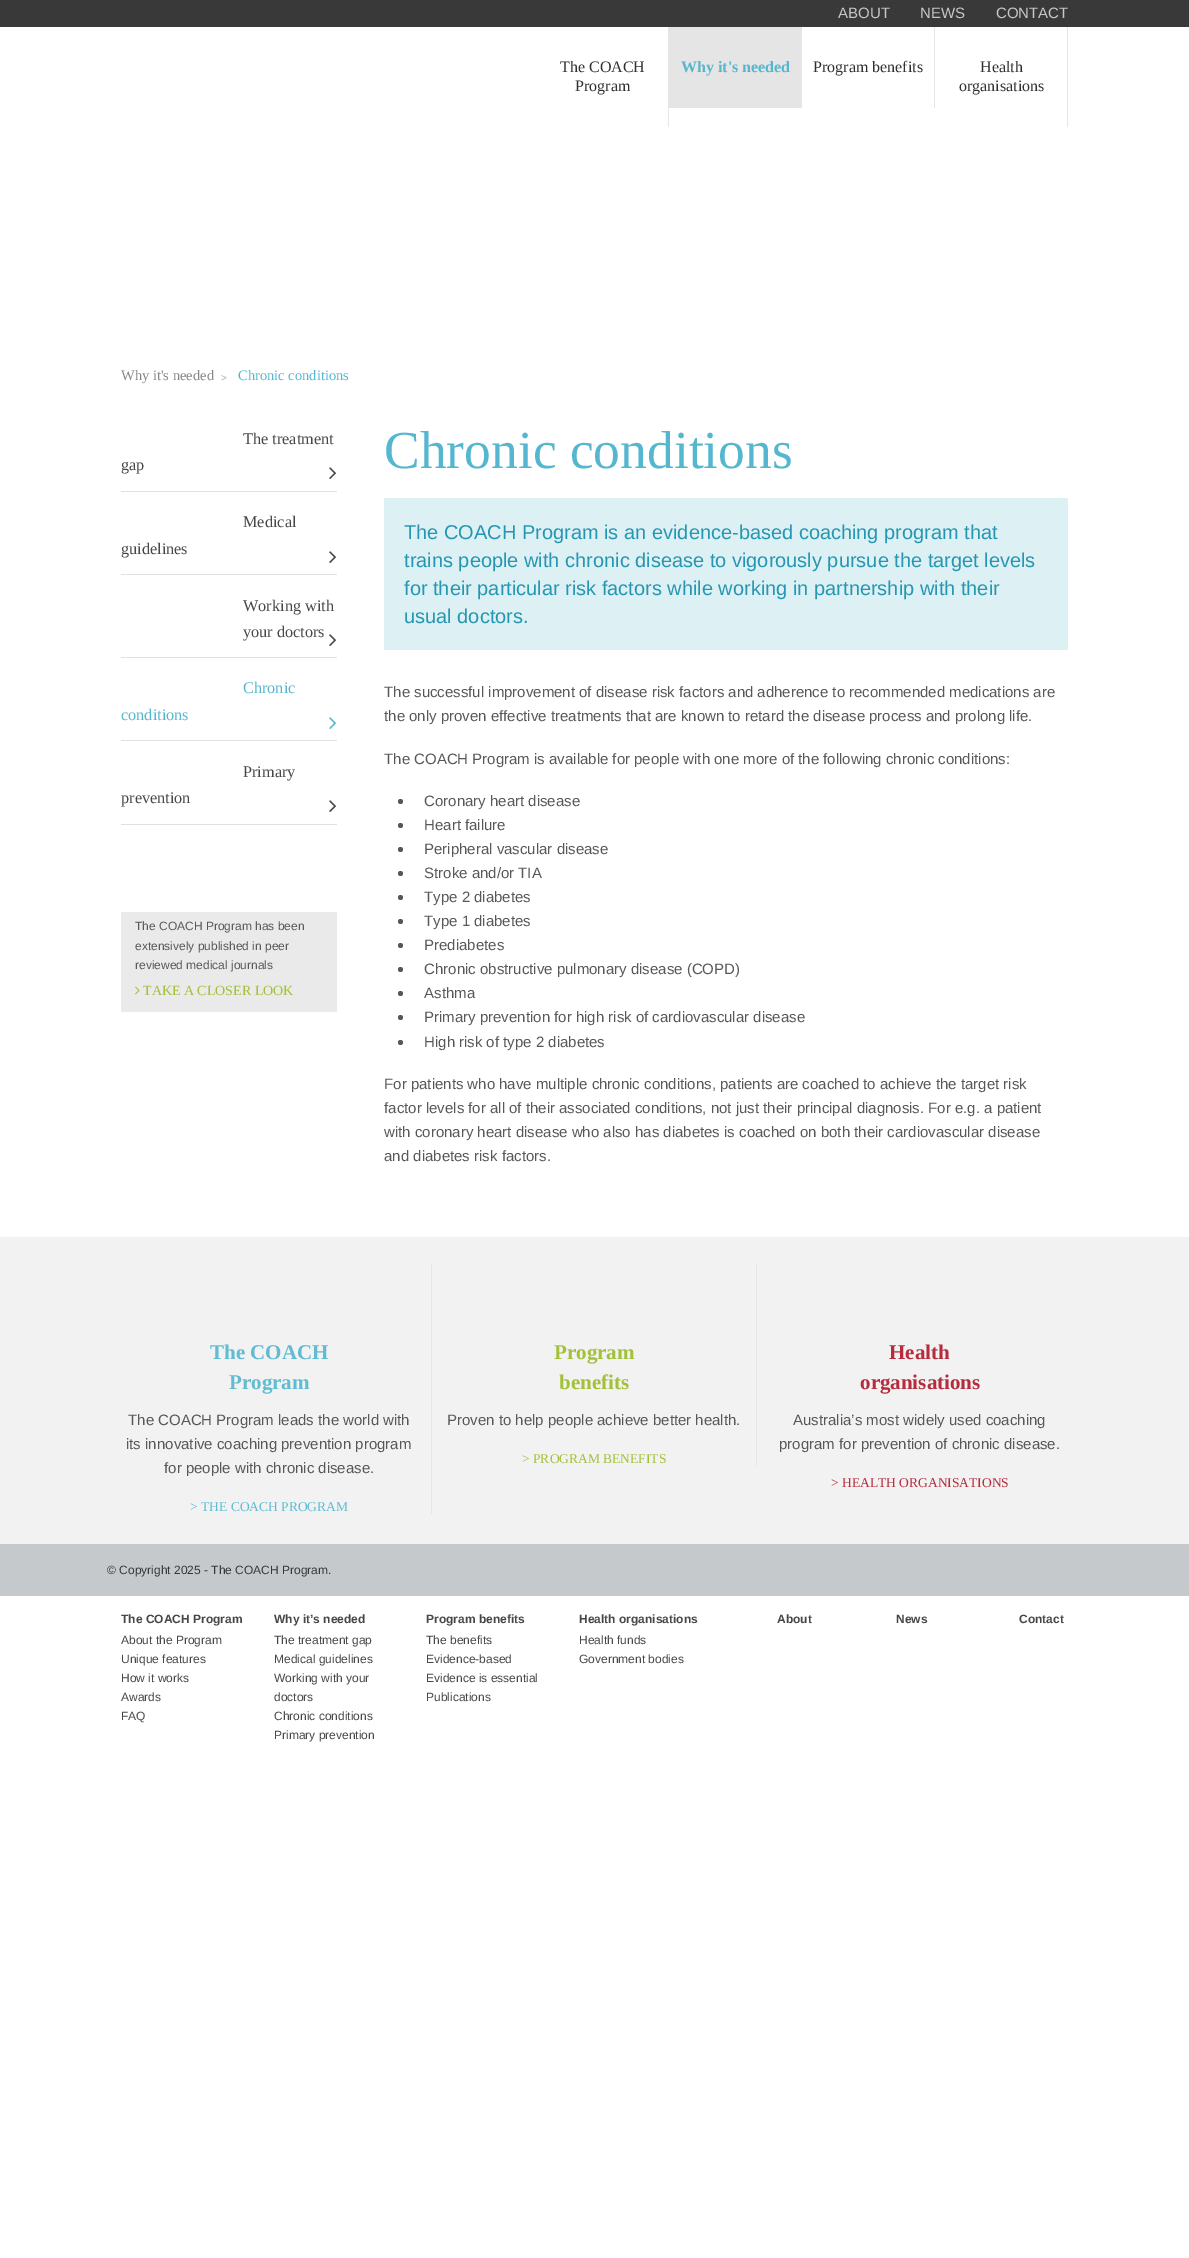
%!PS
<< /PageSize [1189 2258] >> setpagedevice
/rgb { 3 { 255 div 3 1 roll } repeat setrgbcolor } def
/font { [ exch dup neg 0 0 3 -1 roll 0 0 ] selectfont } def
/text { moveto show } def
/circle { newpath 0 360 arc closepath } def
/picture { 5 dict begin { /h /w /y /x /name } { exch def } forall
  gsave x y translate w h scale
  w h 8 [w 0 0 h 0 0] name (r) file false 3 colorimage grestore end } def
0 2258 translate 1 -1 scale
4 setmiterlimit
255 255 255 rgb
0 0 1189 2258 rectfill
57 57 57 rgb
0 0 1189 27 rectfill
230 230 230 rgb
668 27 1 100 rectfill
229 229 229 rgb
669 27 133 81 rectfill
230 230 230 rgb
934 27 1 81 rectfill
1067 27 1 100 rectfill
224 224 224 rgb
121 491 216 1 rectfill
(img_01.rgb) 329 467 7 12 picture
121 574 216 1 rectfill
(img_01.rgb) 329 551 7 12 picture
121 657 216 1 rectfill
(img_01.rgb) 329 634 7 12 picture
121 740 216 1 rectfill
(img_02.rgb) 329 717 7 12 picture
121 824 216 1 rectfill
(img_01.rgb) 329 800 7 12 picture
234 234 234 rgb
121 912 216 100 rectfill
(img_03.rgb) 135 986 5 9 picture
221 241 245 rgb
384 498 684 152 rectfill
88 88 88 rgb
400.5 801.5 2.5 circle fill
400.5 825.5 2.5 circle fill
400.5 849.5 2.5 circle fill
400.5 873.5 2.5 circle fill
400.5 897.5 2.5 circle fill
400.5 921.5 2.5 circle fill
400.5 945.5 2.5 circle fill
400.5 969.5 2.5 circle fill
400.5 993.5 2.5 circle fill
400.5 1017.5 2.5 circle fill
400.5 1042.5 2.5 circle fill
242 242 242 rgb
0 1237 1189 307 rectfill
230 230 230 rgb
431 1264 1 250 rectfill
756 1264 1 202 rectfill
198 201 203 rgb
0 1544 1189 52 rectfill
/LiberationSans-Regular 15 font
199 199 199 rgb
(ABOUT) 838 18 text
(NEWS) 920 18 text
(CONTACT) 996 18 text
/LiberationSerif-Regular 16 font
48 48 48 rgb
(The COACH) 560 72 text
(Program) 575 91 text
/LiberationSerif-Bold 16 font
84 183 207 rgb
(Why it's needed) 681 72 text
/LiberationSerif-Regular 16 font
48 48 48 rgb
(Program benefits) 813 72 text
(Health) 980 72 text
(organisations) 959 91 text
/LiberationSerif-Regular 14.5 font
134 134 134 rgb
(Why it's needed) 121 380 text
/LiberationSans-Regular 10 font
170 170 170 rgb
(>) 221 381 text
/LiberationSerif-Regular 14.5 font
84 183 207 rgb
(Chronic conditions) 238 380 text
/LiberationSerif-Regular 16.25 font
71 71 71 rgb
(The treatment) 243 444 text
(gap) 121 470 text
(Medical) 243 527 text
(guidelines) 121 554 text
(Working with) 243 611 text
(your doctors) 243 637 text
84 183 207 rgb
(Chronic) 243 693 text
(conditions) 121 720 text
71 71 71 rgb
(Primary) 243 777 text
(prevention) 121 803 text
/LiberationSans-Regular 12 font
88 88 88 rgb
(The COACH Program has been) 135 930 text
(extensively published in peer) 135 950 text
(reviewed medical journals) 135 969 text
/LiberationSerif-Regular 14 font
162 193 56 rgb
(TAKE A CLOSER LOOK) 143 995 text
/LiberationSerif-Regular 53.5 font
84 183 207 rgb
(Chronic conditions) 384 468 text
/LiberationSans-Regular 20 font
38 151 178 rgb
(The COACH Program is an evidence-based coaching program that) 404 539 text
(trains people with chronic disease to vigorously pursue the target levels) 404 567 text
(for their particular risk factors while working in partnership with their) 404 595 text
(usual doctors.) 404 623 text
/LiberationSans-Regular 15 font
88 88 88 rgb
(The successful improvement of disease risk factors and adherence to recommended medications are) 384 697 text
(the only proven effective treatments that are known to retard the disease process and prolong life.) 384 721 text
(The COACH Program is available for people with one more of the following chronic conditions:) 384 764 text
(Coronary heart disease) 424 806 text
(Heart failure) 424 830 text
(Peripheral vascular disease) 424 854 text
(Stroke and/or TIA) 424 878 text
(Type 2 diabetes) 424 902 text
(Type 1 diabetes) 424 926 text
(Prediabetes) 424 950 text
(Chronic obstructive pulmonary disease \(COPD\)) 424 974 text
(Asthma) 424 998 text
(Primary prevention for high risk of cardiovascular disease) 424 1022 text
(High risk of type 2 diabetes) 424 1047 text
(For patients who have multiple chronic conditions, patients are coached to achieve the target risk) 384 1089 text
(factor levels for all of their associated conditions, not just their principal diagnosis. For e.g. a patient) 384 1113 text
(with coronary heart disease who also has diabetes is coached on both their cardiovascular disease) 384 1137 text
(and diabetes risk factors.) 384 1161 text
/LiberationSerif-Bold 21 font
95 188 210 rgb
(The COACH) 210 1359 text
(Program) 229 1389 text
/LiberationSans-Regular 15 font
88 88 88 rgb
(The COACH Program leads the world with) 128 1425 text
(its innovative coaching prevention program) 126 1449 text
(for people with chronic disease.) 164 1473 text
/LiberationSerif-Regular 13.5 font
95 188 210 rgb
(> THE COACH PROGRAM) 190 1511 text
/LiberationSerif-Bold 21 font
162 193 56 rgb
(Program) 554 1359 text
(benefits) 559 1389 text
/LiberationSans-Regular 15 font
88 88 88 rgb
(Proven to help people achieve better health.) 447 1425 text
/LiberationSerif-Regular 13.5 font
162 193 56 rgb
(> PROGRAM BENEFITS) 522 1463 text
/LiberationSerif-Bold 21 font
181 44 62 rgb
(Health) 889 1359 text
(organisations) 860 1389 text
/LiberationSans-Regular 15 font
88 88 88 rgb
(Australia’s most widely used coaching) 793 1425 text
(program for prevention of chronic disease.) 779 1449 text
/LiberationSerif-Regular 13.5 font
181 44 62 rgb
(> HEALTH ORGANISATIONS) 831 1487 text
/LiberationSans-Regular 12 font
55 55 55 rgb
(© Copyright 2025 - The COACH Program.) 107 1574 text
/LiberationSans-Bold 12 font
71 71 71 rgb
(The COACH Program) 121 1623 text
/LiberationSans-Regular 12 font
(About the Program) 121 1644 text
(Unique features) 121 1663 text
(How it works) 121 1682 text
(Awards) 121 1701 text
(FAQ) 121 1720 text
/LiberationSans-Bold 12 font
(Why it’s needed) 274 1623 text
/LiberationSans-Regular 12 font
(The treatment gap) 274 1644 text
(Medical guidelines) 274 1663 text
(Working with your) 274 1682 text
(doctors) 274 1701 text
(Chronic conditions) 274 1720 text
(Primary prevention) 274 1739 text
/LiberationSans-Bold 12 font
(Program benefits) 426 1623 text
/LiberationSans-Regular 12 font
(The benefits) 426 1644 text
(Evidence-based) 426 1663 text
(Evidence is essential) 426 1682 text
(Publications) 426 1701 text
/LiberationSans-Bold 12 font
(Health organisations) 579 1623 text
/LiberationSans-Regular 12 font
(Health funds) 579 1644 text
(Government bodies) 579 1663 text
/LiberationSans-Bold 12 font
(About) 777 1623 text
(News) 896 1623 text
(Contact) 1019 1623 text
showpage
